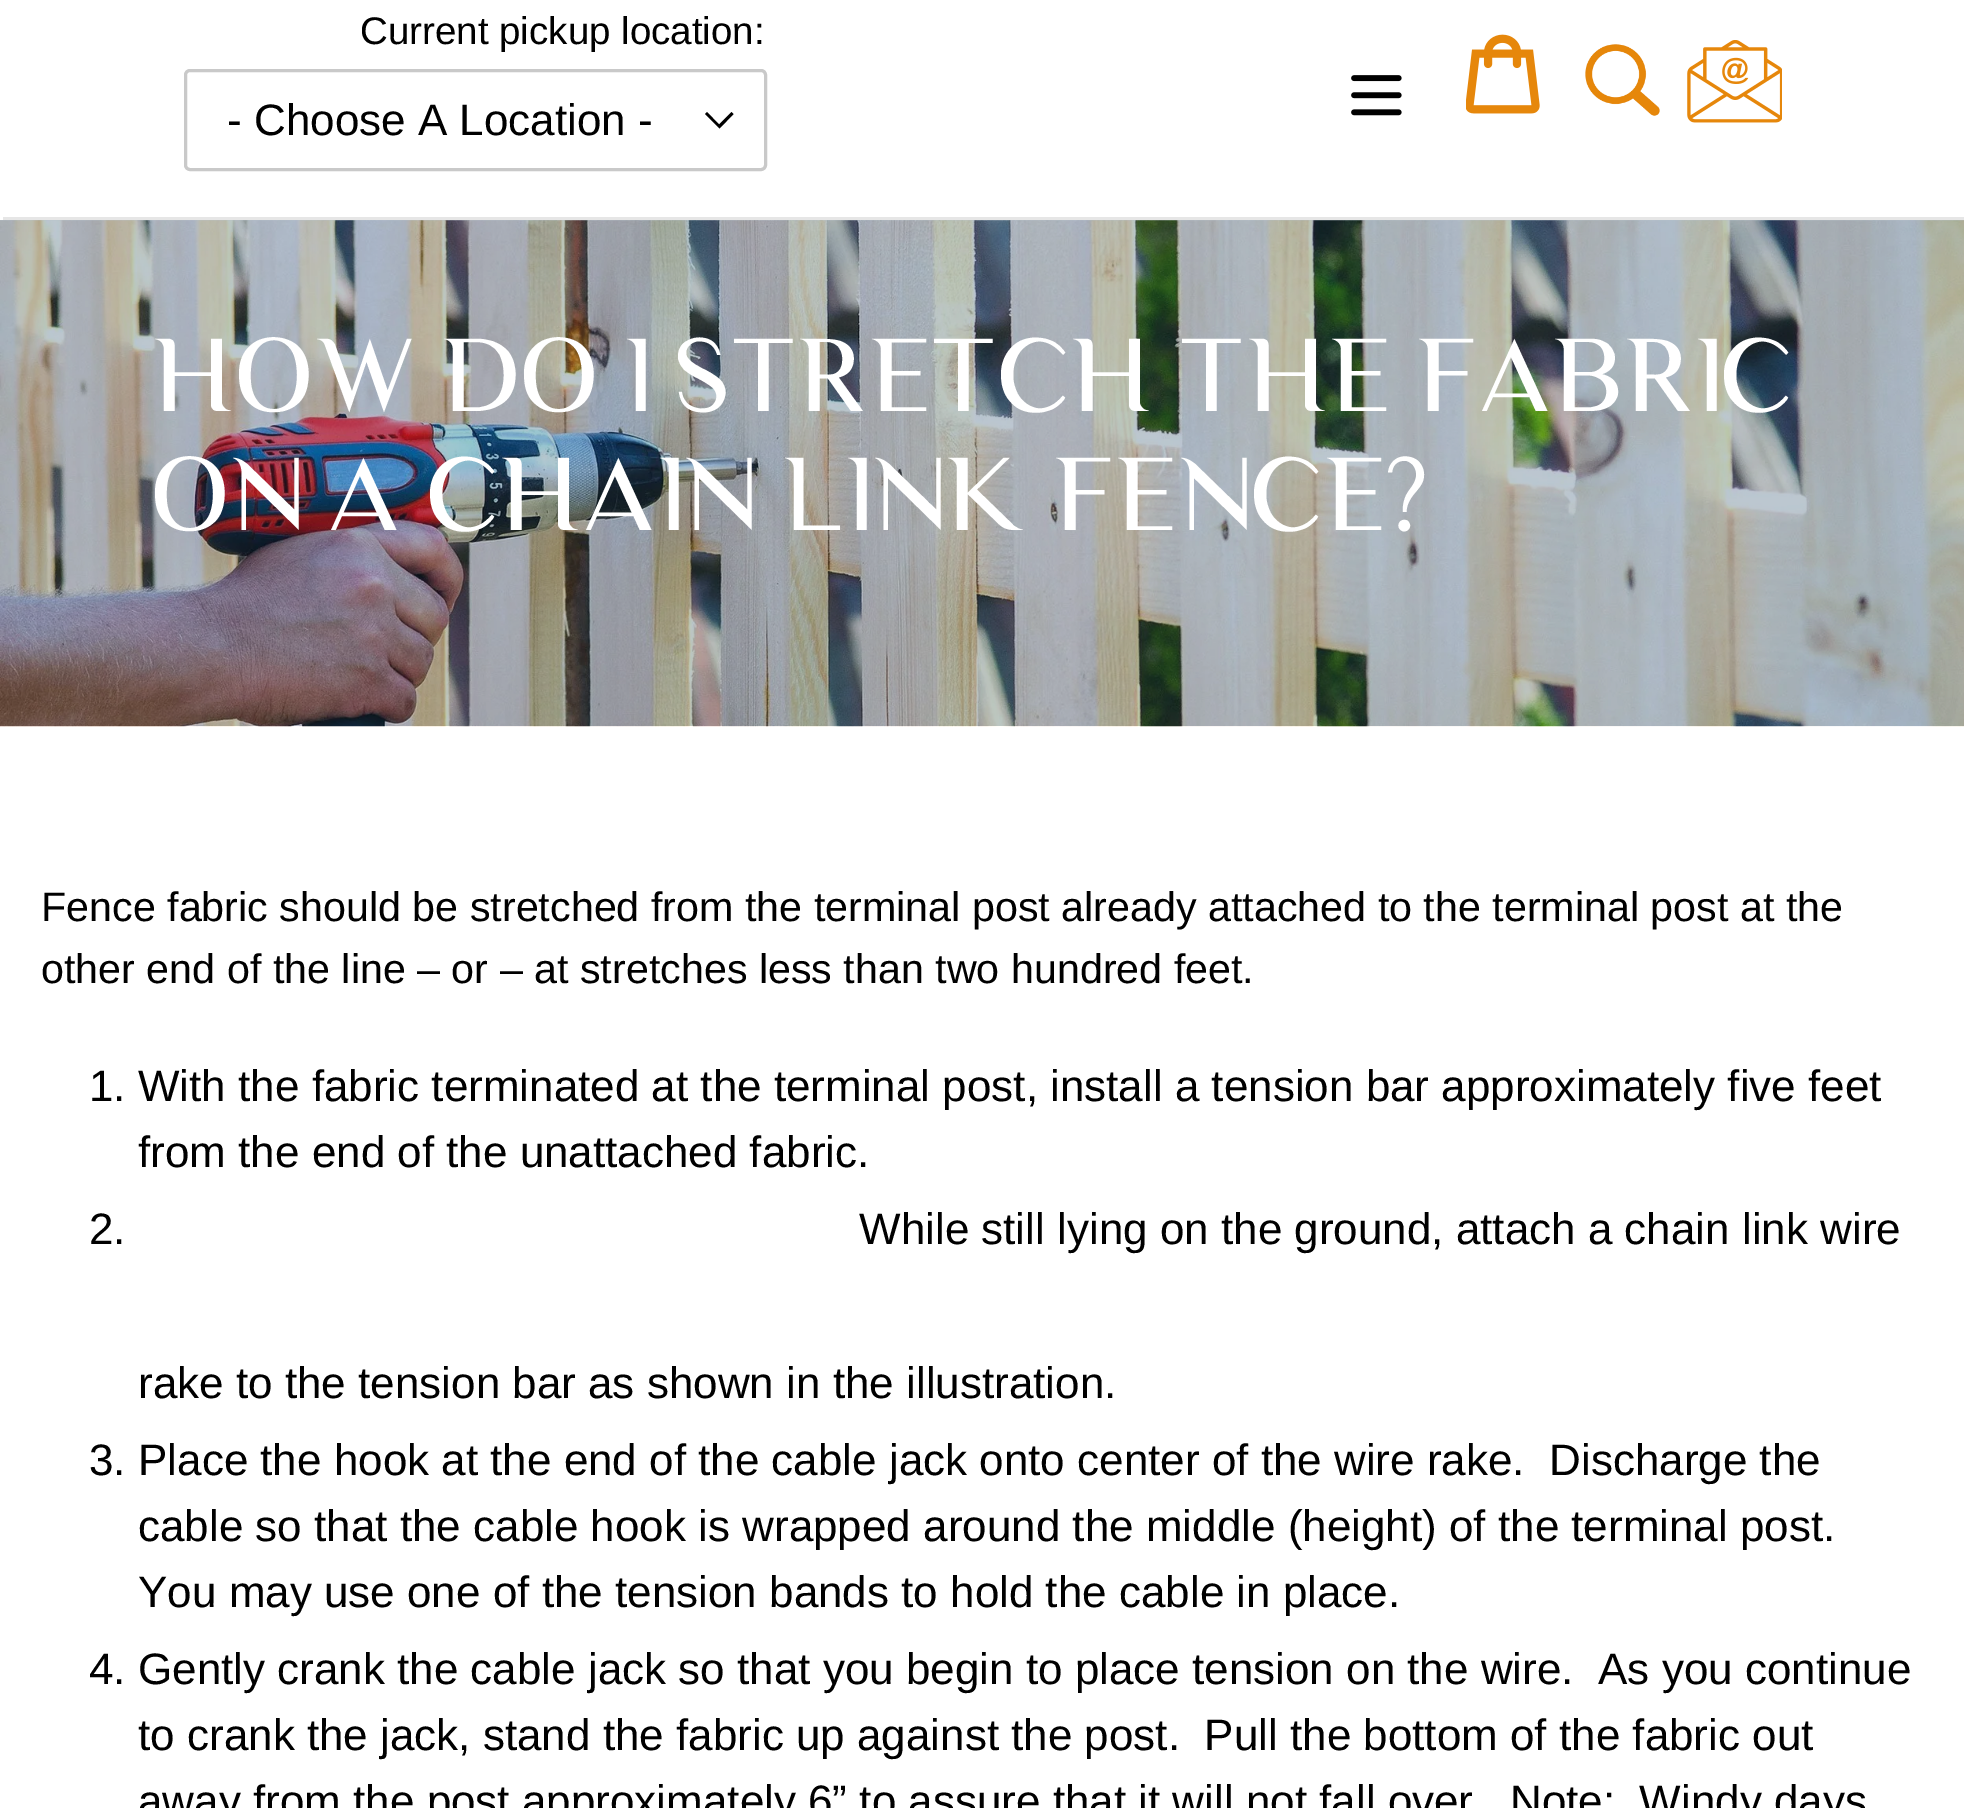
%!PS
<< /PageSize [1964 1808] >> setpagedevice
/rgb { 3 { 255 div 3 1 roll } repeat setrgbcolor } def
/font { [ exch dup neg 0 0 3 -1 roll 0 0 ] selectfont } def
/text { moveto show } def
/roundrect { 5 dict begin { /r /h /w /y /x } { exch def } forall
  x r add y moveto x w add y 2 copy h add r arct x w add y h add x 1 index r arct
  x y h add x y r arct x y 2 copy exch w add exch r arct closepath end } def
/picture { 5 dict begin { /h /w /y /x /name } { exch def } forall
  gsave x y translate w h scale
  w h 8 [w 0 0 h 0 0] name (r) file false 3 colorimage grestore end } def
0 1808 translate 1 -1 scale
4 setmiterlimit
255 255 255 rgb
0 0 1964 1808 rectfill
230 230 230 rgb
3 217 1961 3 rectfill
0 0 0 rgb
719.5 128.5 moveto -14.5 -14.5 rlineto 2 -2 rlineto 12 12.5 rlineto 12.5 -12.5 rlineto 2 2 rlineto closepath fill
201 201 201 rgb
3 setlinewidth
185.5 70.5 580 99 4.5 roundrect stroke
(img_01.rgb) 1351 75 51 41 picture
(img_02.rgb) 1466 34 74 80 picture
(img_03.rgb) 1585 44 75 72 picture
(img_04.rgb) 1687 40 95 83 picture
(img_05.rgb) 0 220 1964 507 picture
/LiberationSans-Regular 38.5 font
0 0 0 rgb
(Current pickup location:) 360 44 text
/LiberationSans-Regular 44 font
(- Choose A Location -) 227 135 text
/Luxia-Medium 99 font
255 255 255 rgb
(HOW DO I STRETCH THE FABRIC) 151 411 text
(ON A CHAIN LINK FENCE?) 151 530 text
/LiberationSans-Regular 41.25 font
0 0 0 rgb
(Fence fabric should be stretched from the terminal post already attached to the terminal post at the) 41 921 text
(other end of the line – or – at stretches less than two hundred feet.) 41 983 text
/LiberationSans-Regular 44 font
(1. With the fabric terminated at the terminal post, install a tension bar approximately five feet) 89 1101 text
(from the end of the unattached fabric.) 138 1167 text
(2.) 89 1244 text
(While still lying on the ground, attach a chain link wire) 859 1244 text
(rake to the tension bar as shown in the illustration.) 138 1398 text
(3. Place the hook at the end of the cable jack onto center of the wire rake.  Discharge the) 89 1475 text
(cable so that the cable hook is wrapped around the middle \(height\) of the terminal post.) 138 1541 text
(You may use one of the tension bands to hold the cable in place.) 138 1607 text
(4. Gently crank the cable jack so that you begin to place tension on the wire.  As you continue) 89 1684 text
(to crank the jack, stand the fabric up against the post.  Pull the bottom of the fabric out) 138 1750 text
(away from the post approximately 6” to assure that it will not fall over.  Note:  Windy days) 138 1816 text
showpage
